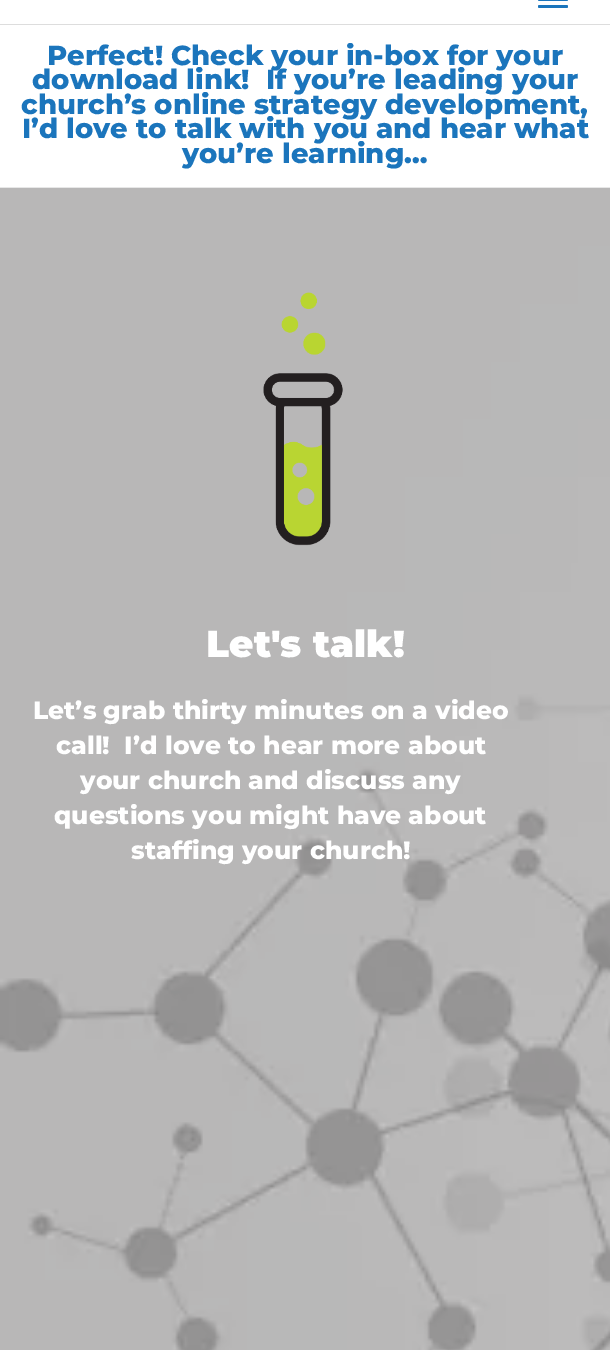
%!PS
<< /PageSize [610 1350] >> setpagedevice
/rgb { 3 { 255 div 3 1 roll } repeat setrgbcolor } def
/font { [ exch dup neg 0 0 3 -1 roll 0 0 ] selectfont } def
/text { moveto show } def
/roundrect { 5 dict begin { /r /h /w /y /x } { exch def } forall
  x r add y moveto x w add y 2 copy h add r arct x w add y h add x 1 index r arct
  x y h add x y r arct x y 2 copy exch w add exch r arct closepath end } def
/picture { 5 dict begin { /h /w /y /x /name } { exch def } forall
  gsave x y translate w h scale
  w h 8 [w 0 0 h 0 0] name (r) file false 3 colorimage grestore end } def
0 1350 translate 1 -1 scale
4 setmiterlimit
255 255 255 rgb
0 0 610 1350 rectfill
221 221 221 rgb
0 24 610 1 rectfill
27 117 188 rgb
538 -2 30 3 1.5 roundrect fill
538 5 30 3 1.5 roundrect fill
(img_01.rgb) 0 187 610 1163 picture
(img_02.rgb) 263 292 80 254 picture
/Montserrat-ExtraBold 27.5 font
(Perfect! Check your in-box for your) 47 65 text
(download link!  If you’re leading your) 32 89 text
(church’s online strategy development,) 21 114 text
(I’d love to talk with you and hear what) 22 138 text
(you’re learning…) 182 163 text
/Montserrat-Black 37.5 font
255 255 255 rgb
(Let's talk!) 206 657 text
/Montserrat-ExtraBold 25 font
(Let’s grab thirty minutes on a video) 33 719 text
(call!  I’d love to hear more about) 56 754 text
(your church and discuss any) 80 789 text
(questions you might have about) 54 824 text
(staffing your church!) 131 859 text
showpage
